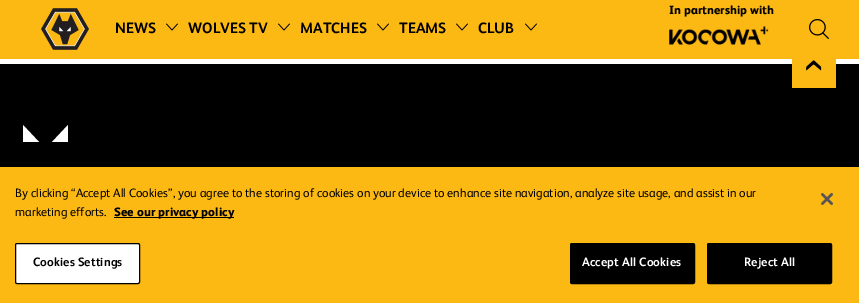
%!PS
<< /PageSize [859 303] >> setpagedevice
/rgb { 3 { 255 div 3 1 roll } repeat setrgbcolor } def
/font { [ exch dup neg 0 0 3 -1 roll 0 0 ] selectfont } def
/text { moveto show } def
/roundrect { 5 dict begin { /r /h /w /y /x } { exch def } forall
  x r add y moveto x w add y 2 copy h add r arct x w add y h add x 1 index r arct
  x y h add x y r arct x y 2 copy exch w add exch r arct closepath end } def
/picture { 5 dict begin { /h /w /y /x /name } { exch def } forall
  gsave x y translate w h scale
  w h 8 [w 0 0 h 0 0] name (r) file false 3 colorimage grestore end } def
0 303 translate 1 -1 scale
4 setmiterlimit
255 255 255 rgb
0 0 859 303 rectfill
253 185 19 rgb
0 0 859 59 rectfill
(img_01.rgb) 41 8 48 42 picture
(img_02.rgb) 166 23 12 8 picture
(img_02.rgb) 278 23 12 8 picture
(img_02.rgb) 377 23 12 8 picture
(img_02.rgb) 456 23 12 8 picture
(img_02.rgb) 525 23 12 8 picture
(img_03.rgb) 669 26 100 19 picture
(img_04.rgb) 809 19 20 20 picture
0 0 0 rgb
0 64 859 103 rectfill
253 185 19 rgb
792 59 44 29 rectfill
(img_05.rgb) 806 60 16 11 picture
255 255 255 rgb
39 142 moveto -16 -17 rlineto 0 17 rlineto closepath 68 125 moveto 0 17 rlineto -16 0 rlineto closepath fill
253 185 19 rgb
0 167 859 136 rectfill
0 0 0 rgb
114 217 120 1 rectfill
255 255 255 rgb
15.5 243.5 124 40 1.5 roundrect gsave fill grestore
0 0 0 rgb
stroke
570.5 243.5 124 40 1.5 roundrect gsave fill grestore
stroke
707.5 243.5 124 40 1.5 roundrect gsave fill grestore
stroke
(img_06.rgb) 821 193 12 12 picture
/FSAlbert-Bold 15 font
(NEWS) 115 33 text
(WOLVES TV) 188 33 text
(MATCHES) 300 33 text
(TEAMS) 399 33 text
(CLUB) 478 33 text
/FSAlbert-ExtraBold 12 font
(In partnership with) 669 14 text
/FSAlbert-Regular 12.2 font
(By clicking “Accept All Cookies”, you agree to the storing of cookies on your device to enhance site navigation, analyze site usage, and assist in our) 15 197 text
(marketing efforts.) 15 216 text
/FSAlbert-ExtraBold 12.2 font
(See our privacy policy) 114 216 text
/FSAlbert-Bold 12.2 font
33 266 moveto 0.1 0 (Cookies Settings) ashow
255 255 255 rgb
582 266 moveto 0.1 0 (Accept All Cookies) ashow
744 266 moveto 0.1 0 (Reject All) ashow
showpage
